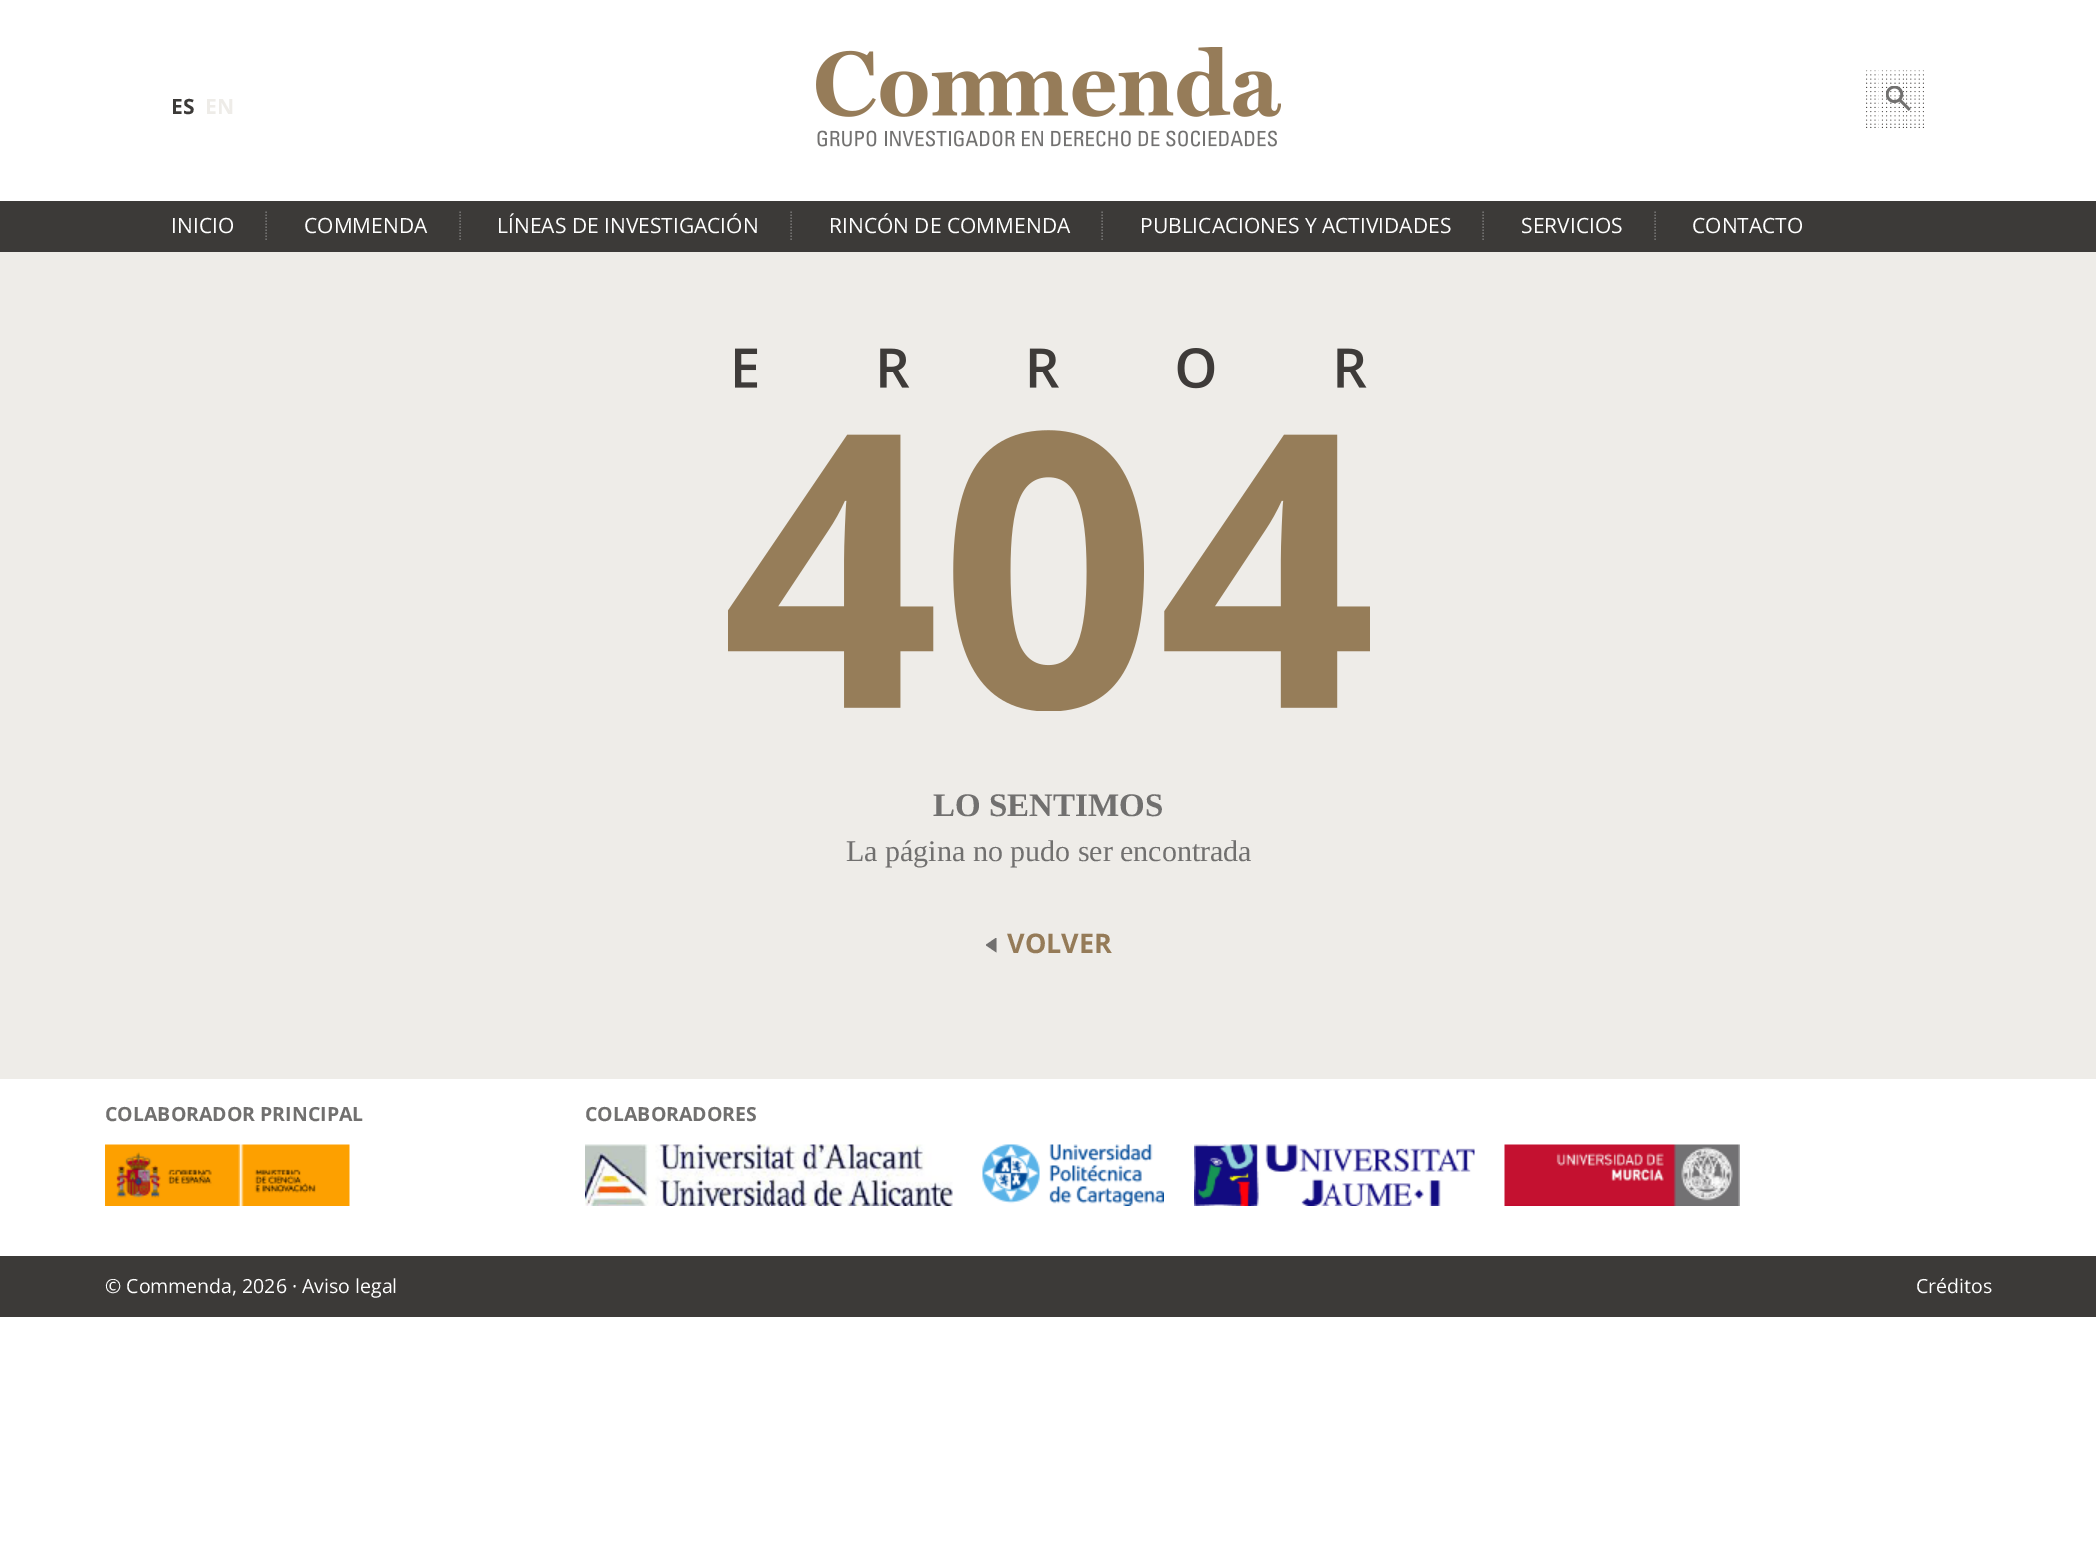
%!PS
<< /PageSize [2096 1551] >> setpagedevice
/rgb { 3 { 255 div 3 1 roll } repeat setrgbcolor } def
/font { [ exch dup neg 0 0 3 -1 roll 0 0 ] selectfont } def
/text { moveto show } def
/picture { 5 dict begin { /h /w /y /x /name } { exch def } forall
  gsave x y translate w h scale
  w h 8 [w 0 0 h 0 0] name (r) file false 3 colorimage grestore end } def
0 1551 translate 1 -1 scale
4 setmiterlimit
255 255 255 rgb
0 0 2096 1551 rectfill
(img_01.rgb) 816 47 465 100 picture
(img_02.rgb) 1866 70 58 58 picture
(img_03.rgb) 1886 86 25 25 picture
60 58 56 rgb
0 201 2096 51 rectfill
113 112 111 rgb
1.5 setlinewidth
[1.5 1.5] 0 setdash
266 211.5 moveto 0 28.5 rlineto stroke
460 211.5 moveto 0 28.5 rlineto stroke
791 211.5 moveto 0 28.5 rlineto stroke
1102 211.5 moveto 0 28.5 rlineto stroke
1483 211.5 moveto 0 28.5 rlineto stroke
1655 211.5 moveto 0 28.5 rlineto stroke
238 236 232 rgb
0 252 2096 827 rectfill
(img_04.rgb) 728 348 642 363 picture
gsave
986 938 15 15 rectclip
113 112 111 rgb
985.5 945 moveto 11 -7.5 rlineto 0 15 rlineto closepath fill
grestore
(img_05.rgb) 105 1144 245 62 picture
(img_06.rgb) 585 1144 368 62 picture
(img_07.rgb) 982 1144 182 62 picture
(img_08.rgb) 1194 1144 281 62 picture
(img_09.rgb) 1504 1144 236 62 picture
60 58 56 rgb
0 1256 2096 61 rectfill
/OpenSans-Bold 21 font
(ES) 171 114 text
238 236 232 rgb
(EN) 205 114 text
/OpenSans-Regular 21 font
255 255 255 rgb
(INICIO) 171 233 text
(COMMENDA) 304 233 text
(LÍNEAS DE INVESTIGACIÓN) 497 233 text
(RINCÓN DE COMMENDA) 829 233 text
(PUBLICACIONES Y ACTIVIDADES) 1140 233 text
(SERVICIOS) 1521 233 text
(CONTACTO) 1692 233 text
/LiberationSerif-Bold 33 font
113 112 111 rgb
(LO SENTIMOS) 933 816 text
/LiberationSerif-Regular 30 font
(La página no pudo ser encontrada) 846 861 text
/OpenSans-Bold 27 font
149 123 88 rgb
(VOLVER) 1007 953 text
/OpenSans-Bold 19.5 font
113 112 111 rgb
(COLABORADOR PRINCIPAL) 105 1121 text
(COLABORADORES) 585 1121 text
/OpenSans-Regular 19.5 font
255 255 255 rgb
(© Commenda, 2026 · Aviso legal) 105 1293 text
(Créditos) 1916 1293 text
showpage
